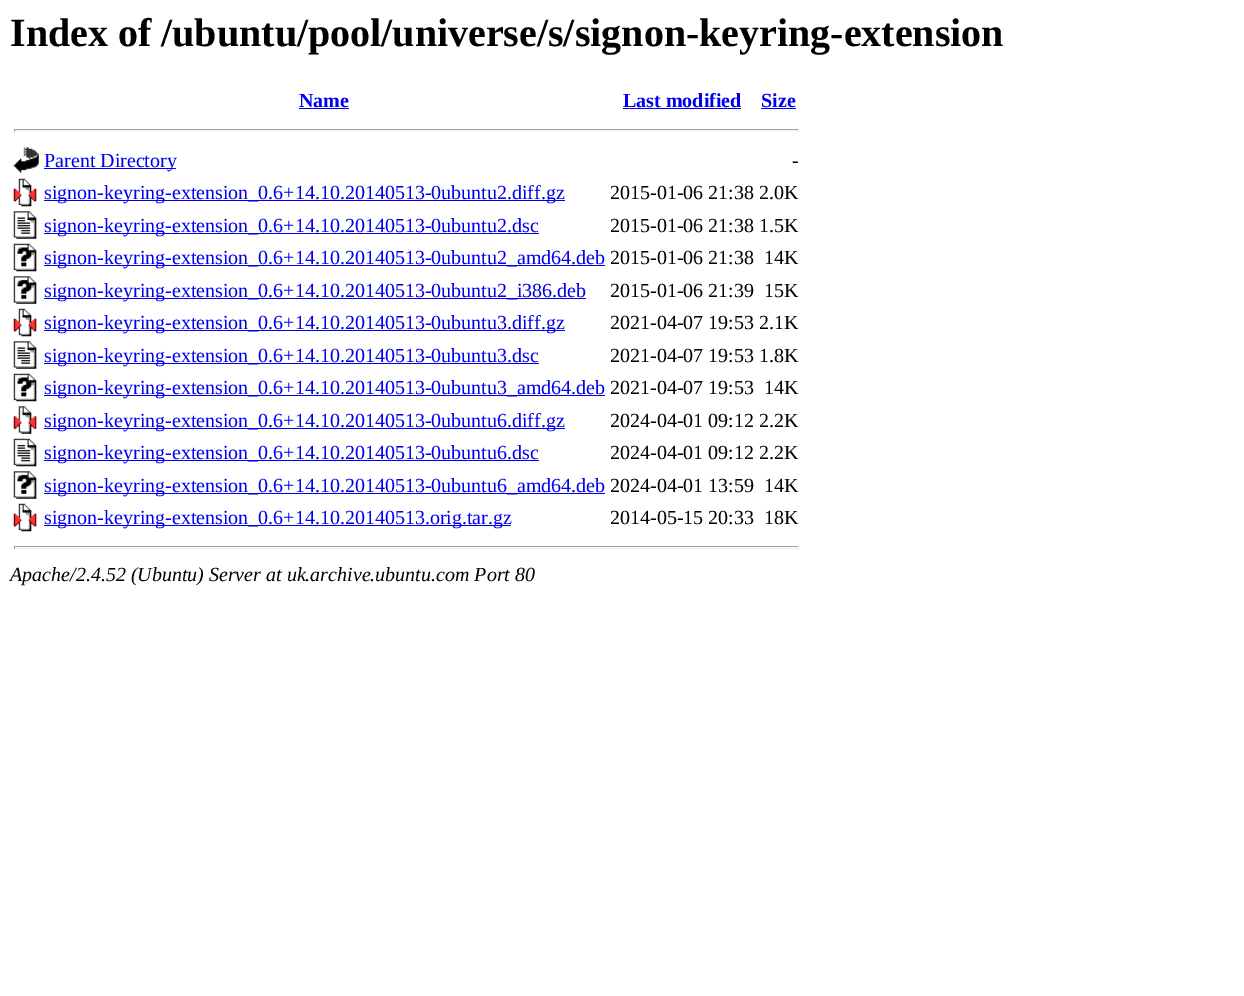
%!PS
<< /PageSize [1244 996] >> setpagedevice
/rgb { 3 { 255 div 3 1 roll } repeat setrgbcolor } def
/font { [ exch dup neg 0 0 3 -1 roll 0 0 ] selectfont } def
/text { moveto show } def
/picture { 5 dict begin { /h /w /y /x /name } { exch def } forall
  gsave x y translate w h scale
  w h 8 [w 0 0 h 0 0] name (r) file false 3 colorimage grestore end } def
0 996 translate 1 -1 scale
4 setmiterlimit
255 255 255 rgb
0 0 1244 996 rectfill
0 0 238 rgb
299 108 50 1 rectfill
623 108 118 1 rectfill
761 108 35 1 rectfill
159 159 159 rgb
14 129 785 1 rectfill
238 238 238 rgb
798 129 1 3 rectfill
14 130 785 1 rectfill
159 159 159 rgb
14 129 1 3 rectfill
(img_01.rgb) 13 147 26 26 picture
0 0 238 rgb
44 168 132 1 rectfill
(img_02.rgb) 13 178 24 29 picture
44 200 521 1 rectfill
(img_03.rgb) 13 211 24 28 picture
44 233 495 1 rectfill
(img_04.rgb) 13 243 24 29 picture
44 265 561 1 rectfill
(img_05.rgb) 13 276 24 28 picture
44 298 542 1 rectfill
(img_02.rgb) 13 308 24 29 picture
44 330 521 1 rectfill
(img_03.rgb) 13 341 24 28 picture
44 363 495 1 rectfill
(img_04.rgb) 13 373 24 29 picture
44 395 561 1 rectfill
(img_06.rgb) 13 406 24 28 picture
44 428 521 1 rectfill
(img_07.rgb) 13 438 24 29 picture
44 460 495 1 rectfill
(img_08.rgb) 13 471 24 28 picture
44 493 561 1 rectfill
(img_02.rgb) 13 503 24 29 picture
44 525 467 1 rectfill
159 159 159 rgb
14 546 785 1 rectfill
238 238 238 rgb
798 546 1 3 rectfill
14 548 785 1 rectfill
159 159 159 rgb
14 546 1 3 rectfill
/LiberationSerif-Bold 40 font
0 0 0 rgb
(Index of /ubuntu/pool/universe/s/signon-keyring-extension) 10 46 text
/LiberationSerif-Bold 20 font
0 0 238 rgb
(Name) 299 107 text
(Last modified) 623 107 text
(Size) 761 107 text
/LiberationSerif-Regular 20 font
(Parent Directory) 44 167 text
0 0 0 rgb
(-) 792 167 text
0 0 238 rgb
(signon-keyring-extension_0.6+14.10.20140513-0ubuntu2.diff.gz) 44 199 text
0 0 0 rgb
(2015-01-06 21:38 2.0K) 610 199 text
0 0 238 rgb
(signon-keyring-extension_0.6+14.10.20140513-0ubuntu2.dsc) 44 232 text
0 0 0 rgb
(2015-01-06 21:38 1.5K) 610 232 text
0 0 238 rgb
(signon-keyring-extension_0.6+14.10.20140513-0ubuntu2_amd64.deb) 44 264 text
0 0 0 rgb
(2015-01-06 21:38) 610 264 text
(14K) 764 264 text
0 0 238 rgb
(signon-keyring-extension_0.6+14.10.20140513-0ubuntu2_i386.deb) 44 297 text
0 0 0 rgb
(2015-01-06 21:39) 610 297 text
(15K) 764 297 text
0 0 238 rgb
(signon-keyring-extension_0.6+14.10.20140513-0ubuntu3.diff.gz) 44 329 text
0 0 0 rgb
(2021-04-07 19:53 2.1K) 610 329 text
0 0 238 rgb
(signon-keyring-extension_0.6+14.10.20140513-0ubuntu3.dsc) 44 362 text
0 0 0 rgb
(2021-04-07 19:53 1.8K) 610 362 text
0 0 238 rgb
(signon-keyring-extension_0.6+14.10.20140513-0ubuntu3_amd64.deb) 44 394 text
0 0 0 rgb
(2021-04-07 19:53) 610 394 text
(14K) 764 394 text
0 0 238 rgb
(signon-keyring-extension_0.6+14.10.20140513-0ubuntu6.diff.gz) 44 427 text
0 0 0 rgb
(2024-04-01 09:12 2.2K) 610 427 text
0 0 238 rgb
(signon-keyring-extension_0.6+14.10.20140513-0ubuntu6.dsc) 44 459 text
0 0 0 rgb
(2024-04-01 09:12 2.2K) 610 459 text
0 0 238 rgb
(signon-keyring-extension_0.6+14.10.20140513-0ubuntu6_amd64.deb) 44 492 text
0 0 0 rgb
(2024-04-01 13:59) 610 492 text
(14K) 764 492 text
0 0 238 rgb
(signon-keyring-extension_0.6+14.10.20140513.orig.tar.gz) 44 524 text
0 0 0 rgb
(2014-05-15 20:33) 610 524 text
(18K) 764 524 text
/LiberationSerif-Italic 20 font
(Apache/2.4.52 \(Ubuntu\) Server at uk.archive.ubuntu.com Port 80) 10 581 text
showpage
